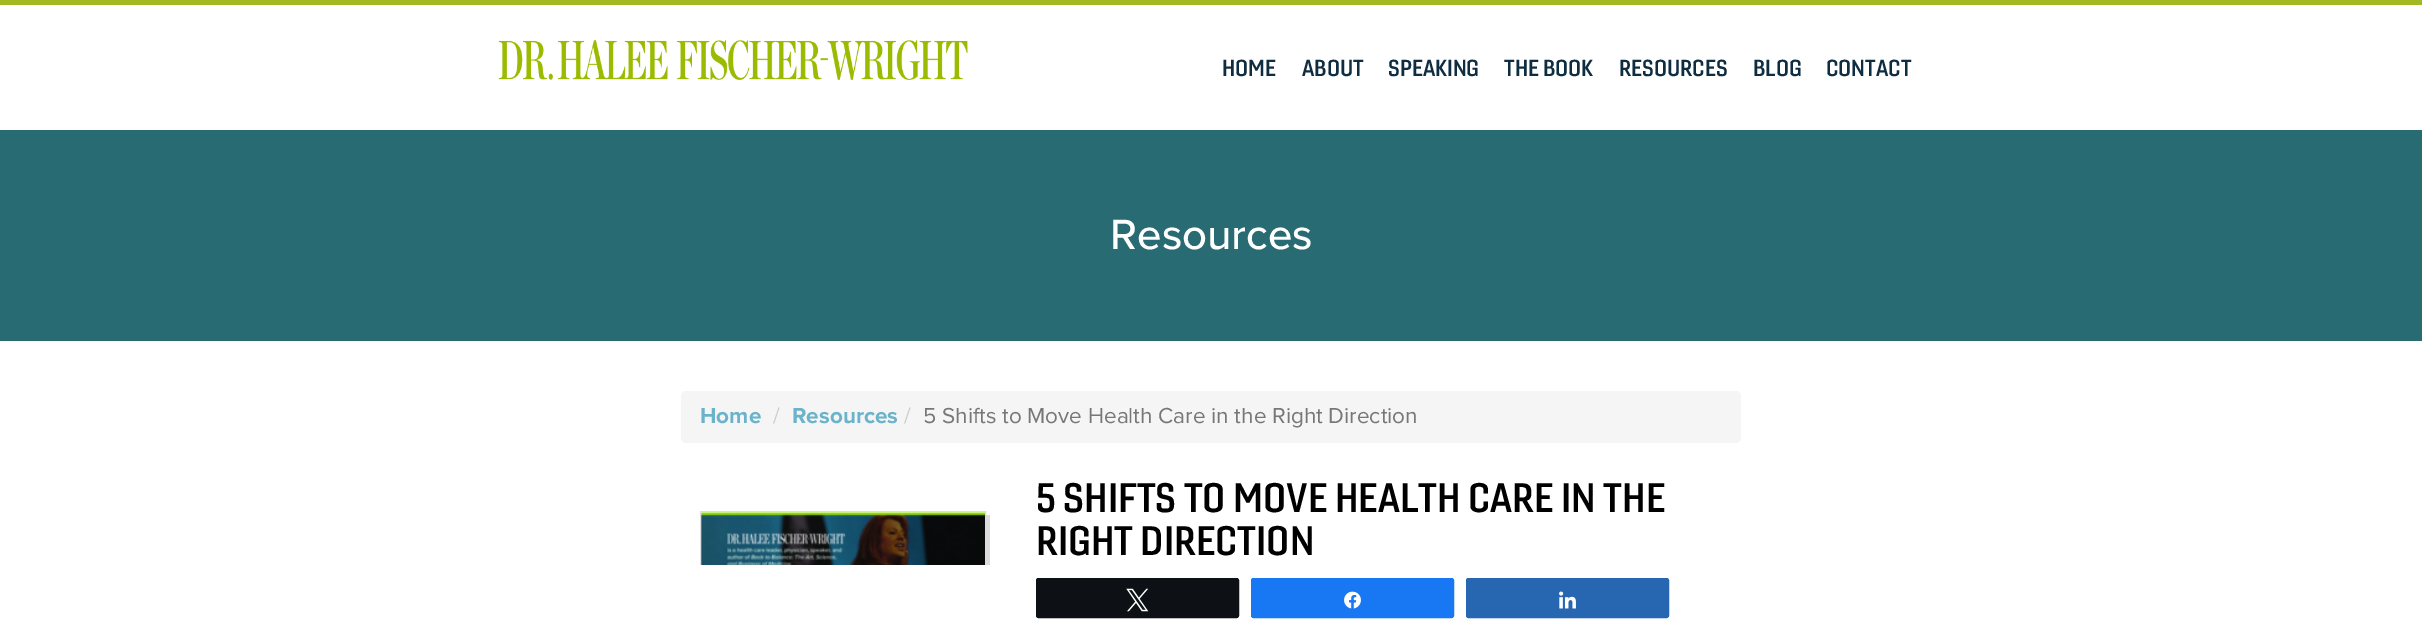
%!PS
<< /PageSize [2422 632] >> setpagedevice
/rgb { 3 { 255 div 3 1 roll } repeat setrgbcolor } def
/font { [ exch dup neg 0 0 3 -1 roll 0 0 ] selectfont } def
/text { moveto show } def
/roundrect { 5 dict begin { /r /h /w /y /x } { exch def } forall
  x r add y moveto x w add y 2 copy h add r arct x w add y h add x 1 index r arct
  x y h add x y r arct x y 2 copy exch w add exch r arct closepath end } def
/picture { 5 dict begin { /h /w /y /x /name } { exch def } forall
  gsave x y translate w h scale
  w h 8 [w 0 0 h 0 0] name (r) file false 3 colorimage grestore end } def
0 632 translate 1 -1 scale
4 setmiterlimit
255 255 255 rgb
0 0 2422 632 rectfill
162 185 33 rgb
0 0 2422 5 rectfill
(img_01.rgb) 498 40 470 40 picture
41 107 115 rgb
0 130 2422 211 rectfill
245 245 245 rgb
681 391 1060 52 5 roundrect fill
221 221 221 rgb
700.5 511.5 285 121 rectstroke
(img_02.rgb) 701 512 284 53 picture
704 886 moveto 0 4 rlineto 286 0 rlineto 0 -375 rlineto -4 0 rlineto 0 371 rlineto closepath fill
255 255 255 rgb
700 565 290 67 rectfill
13 16 20 rgb
1036.5 578.5 202 39 2 roundrect gsave fill grestore
stroke
(img_03.rgb) 1126 588 23 24 picture
24 119 242 rgb
1251.5 578.5 202 39 2 roundrect gsave fill grestore
stroke
(img_04.rgb) 1344 591 17 18 picture
39 103 177 rgb
1466.5 578.5 202 39 2 roundrect gsave fill grestore
stroke
(img_05.rgb) 1559 591 17 18 picture
/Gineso-Bold 22.5 font
15 45 64 rgb
(HOME) 1222 76 text
(ABOUT) 1302 76 text
(SPEAKING) 1388 76 text
(THE BOOK) 1504 76 text
(RESOURCES) 1619 76 text
(BLOG) 1753 76 text
(CONTACT) 1826 76 text
/ProximaNova-Medium 43.75 font
255 255 255 rgb
(Resources) 1110 249 text
/ProximaNova-Bold 22.5 font
106 179 203 rgb
(Home) 700 423 text
/ProximaNova-Regular 22.5 font
204 204 204 rgb
(/) 773 423 text
/ProximaNova-Bold 22.5 font
106 179 203 rgb
(Resources) 792 423 text
/ProximaNova-Regular 22.5 font
204 204 204 rgb
(/) 904 423 text
119 119 119 rgb
(5 Shifts to Move Health Care in the Right Direction) 923 423 text
/Gineso-Bold 40 font
0 0 0 rgb
(5 SHIFTS TO MOVE HEALTH CARE IN THE) 1036 512 text
(RIGHT DIRECTION) 1036 555 text
showpage
